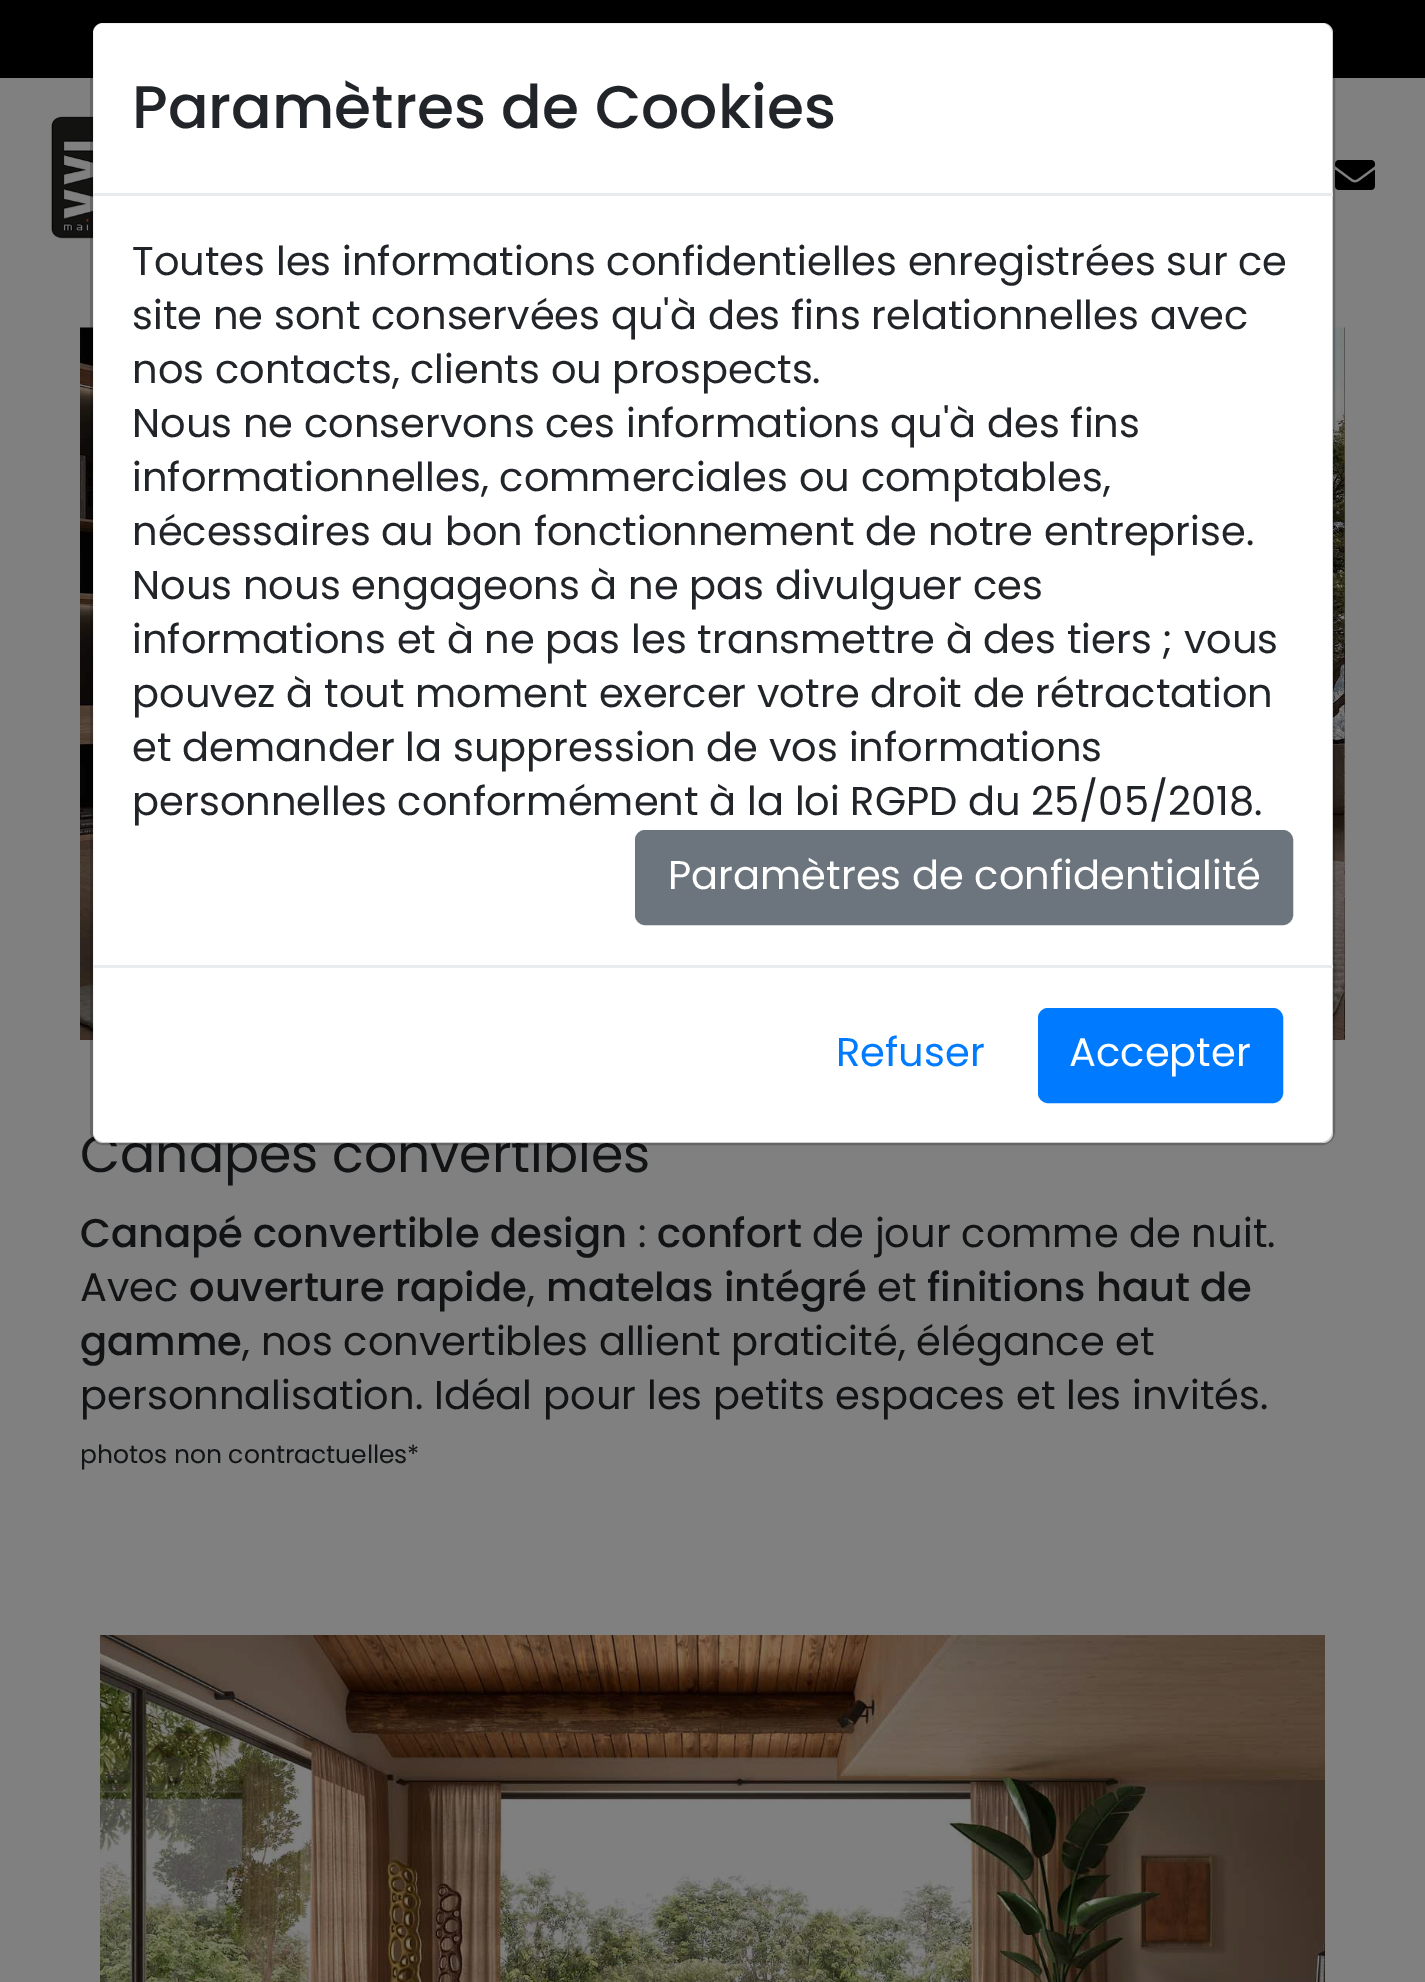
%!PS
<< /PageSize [1425 1982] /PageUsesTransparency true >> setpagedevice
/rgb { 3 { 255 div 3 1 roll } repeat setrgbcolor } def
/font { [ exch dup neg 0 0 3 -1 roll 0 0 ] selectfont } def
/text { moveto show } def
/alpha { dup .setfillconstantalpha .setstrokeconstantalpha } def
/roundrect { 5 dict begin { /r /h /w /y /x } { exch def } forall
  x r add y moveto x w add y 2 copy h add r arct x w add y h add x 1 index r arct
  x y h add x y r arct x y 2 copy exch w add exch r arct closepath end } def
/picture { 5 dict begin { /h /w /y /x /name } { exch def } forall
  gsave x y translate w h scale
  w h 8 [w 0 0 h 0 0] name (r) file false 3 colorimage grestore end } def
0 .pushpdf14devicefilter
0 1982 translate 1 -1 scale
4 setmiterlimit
128 128 128 rgb
0 0 1425 1982 rectfill
0 0 0 rgb
0 0 1425 78 rectfill
(img_01.rgb) 51 116 42 123 picture
(img_02.rgb) 1335 160 40 30 picture
(img_03.rgb) 80 327 1265 713 picture
(img_04.rgb) 100 1635 1225 347 picture
/Poppins-Regular 52 font
17 19 21 rgb
(Canapés convertibles) 80 1172 text
255 255 255 rgb
93 23 1240 1120 10 roundrect fill
0.2 alpha
0 0 0 rgb
3 setlinewidth
91.5 21.5 1242 1122 11.5 roundrect stroke
/Poppins-Regular 40 font
1 alpha
33 37 41 rgb
(personnelles conformément à la loi RGPD du 25/05/2018.) 132 815 text
(et demander la suppression de vos informations) 132 761 text
(pouvez à tout moment exercer votre droit de rétractation) 132 707 text
(informations et à ne pas les transmettre à des tiers ; vous) 132 653 text
(Nous nous engageons à ne pas divulguer ces) 132 599 text
(nécessaires au bon fonctionnement de notre entreprise.) 132 545 text
(informationnelles, commerciales ou comptables,) 132 491 text
(Nous ne conservons ces informations qu'à des fins) 132 437 text
(nos contacts, clients ou prospects.) 132 383 text
(site ne sont conservées qu'à des fins relationnelles avec) 132 329 text
(Toutes les informations confidentielles enregistrées sur ce) 132 275 text
108 117 125 rgb
636.5 831.5 655 92 8.5 roundrect gsave fill grestore
stroke
255 255 255 rgb
(Paramètres de confidentialité) 668 889 text
0 123 255 rgb
1039.5 1009.5 242 92 8.5 roundrect gsave fill grestore
stroke
255 255 255 rgb
(Accepter) 1069 1066 text
0 123 255 rgb
(Refuser) 836 1066 text
233 236 239 rgb
93 965 1240 3 rectfill
/Poppins-Medium 60 font
33 37 41 rgb
(Paramètres de Cookies) 132 128 text
233 236 239 rgb
93 193 1240 3 rectfill
/Poppins-Medium 40 font
17 19 21 rgb
(Canapé convertible design) 80 1247 text
/Poppins-Regular 40 font
(:) 638 1247 text
/Poppins-Medium 40 font
(confort) 657 1247 text
/Poppins-Regular 40 font
(de jour comme de nuit.) 812 1247 text
(Avec) 80 1301 text
/Poppins-Medium 40 font
(ouverture rapide) 189 1301 text
/Poppins-Regular 40 font
(,) 527 1301 text
/Poppins-Medium 40 font
(matelas intégré) 546 1301 text
/Poppins-Regular 40 font
(et) 877 1301 text
/Poppins-Medium 40 font
(finitions haut de) 927 1301 text
(gamme) 80 1355 text
/Poppins-Regular 40 font
(, nos convertibles allient praticité, élégance et) 242 1355 text
(personnalisation. Idéal pour les petits espaces et les invités.) 80 1409 text
/Poppins-Regular 25 font
(photos non contractuelles*) 80 1463 text
.poppdf14devicefilter showpage
